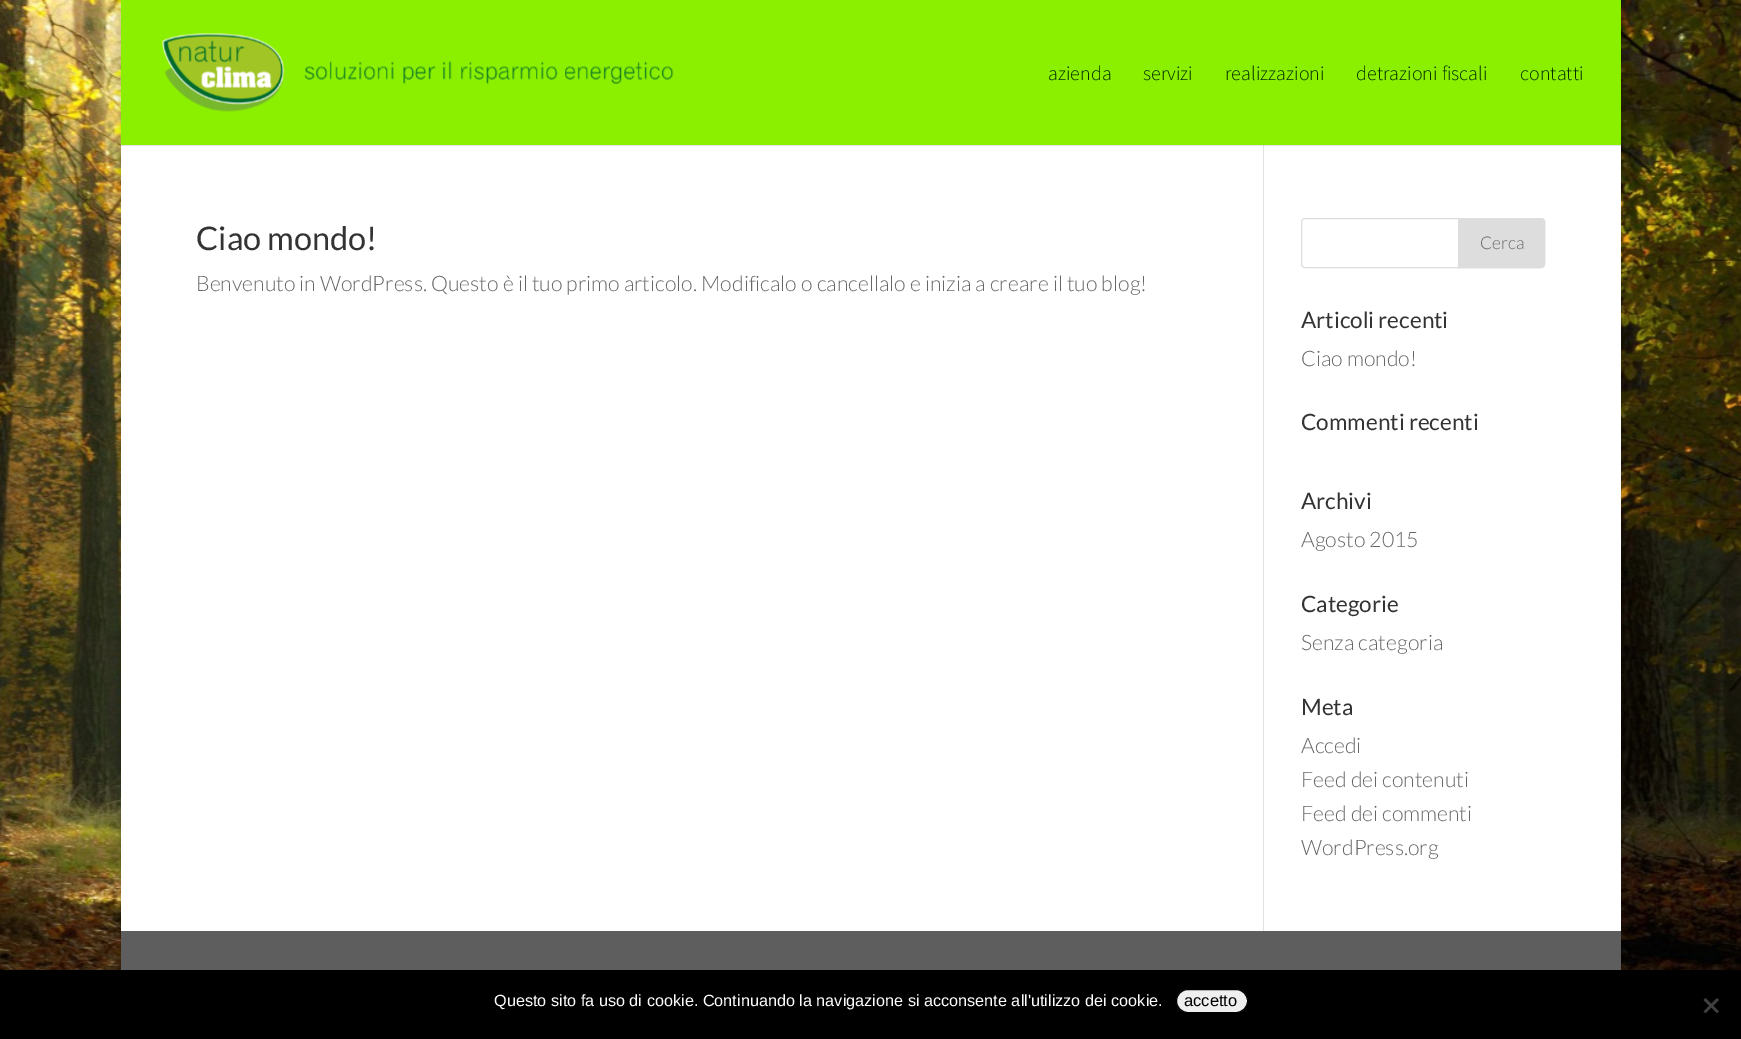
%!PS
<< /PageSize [1741 1039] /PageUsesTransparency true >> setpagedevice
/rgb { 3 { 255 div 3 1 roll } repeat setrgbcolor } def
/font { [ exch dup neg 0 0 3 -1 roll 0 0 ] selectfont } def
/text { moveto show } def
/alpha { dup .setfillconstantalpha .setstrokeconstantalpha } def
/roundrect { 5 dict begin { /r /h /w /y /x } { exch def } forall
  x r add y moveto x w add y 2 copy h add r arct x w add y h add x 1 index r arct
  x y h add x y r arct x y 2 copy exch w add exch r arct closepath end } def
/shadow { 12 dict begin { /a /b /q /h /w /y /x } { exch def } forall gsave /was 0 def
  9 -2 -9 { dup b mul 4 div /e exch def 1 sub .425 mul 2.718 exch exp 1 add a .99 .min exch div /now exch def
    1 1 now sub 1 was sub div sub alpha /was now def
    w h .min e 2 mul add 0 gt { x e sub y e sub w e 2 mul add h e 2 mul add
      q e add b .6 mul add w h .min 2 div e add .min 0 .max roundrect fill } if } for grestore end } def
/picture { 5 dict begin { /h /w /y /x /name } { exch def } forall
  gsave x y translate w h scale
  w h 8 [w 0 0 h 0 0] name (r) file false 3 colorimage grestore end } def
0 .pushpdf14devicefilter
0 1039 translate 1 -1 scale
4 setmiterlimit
255 255 255 rgb
0 0 1741 1039 rectfill
(img_01.rgb) 0 0 1741 970 picture
0 0 0 rgb
121 0 1500 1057 0 6 0.2 shadow
255 255 255 rgb
121 145 1500 786 rectfill
226 226 226 rgb
1263 145 1 786 rectfill
0.1 alpha
0 0 0 rgb
121 1 moveto 0 145 rlineto 1500 0 rlineto 0 -1 rlineto -1500 0 rlineto closepath fill
1 alpha
139 239 0 rgb
121 0 1500 145 rectfill
(img_02.rgb) 162 33 512 79 picture
221 221 221 rgb
1301.5 218.5 243 49 3.5 roundrect stroke
1458.5 218.5 moveto 82.5 0 rlineto 2 0 3.5 1.5 3.5 3.5 rcurveto 0 42 rlineto 0 2 -1.5 3.5 -3.5 3.5 rcurveto -82.5 0 rlineto closepath gsave fill grestore
stroke
94 94 94 rgb
121 931 1500 39 rectfill
0 0 0 rgb
0 970 1741 69 rectfill
239 239 239 rgb
1176.5 989.5 71 23 11.5 roundrect gsave fill grestore
0 0 0 rgb
stroke
64 64 64 rgb
1717 998 moveto 2 2 rlineto -13.5 13 rlineto -2 -1.5 rlineto closepath fill
1703.5 1000 moveto 2 -2 rlineto 13.5 13.5 rlineto -2 1.5 rlineto closepath fill
/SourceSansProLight-Light 20 font
3 48 0 rgb
(azienda) 1048 80 text
(servizi) 1143 80 text
(realizzazioni) 1225 80 text
(detrazioni fiscali) 1356 80 text
(contatti) 1520 80 text
/Lato-Regular 32.5 font
51 51 51 rgb
(Ciao mondo!) 196 250 text
/Lato-Light 21.25 font
102 102 102 rgb
(Benvenuto in WordPress. Questo è il tuo primo articolo. Modificalo o cancellalo e inizia a creare il tuo blog!) 196 291 text
/Lato-Light 17.5 font
(Cerca) 1480 249 text
/Lato-Regular 22.5 font
51 51 51 rgb
(Articoli recenti) 1301 328 text
/Lato-Light 21.25 font
102 102 102 rgb
(Ciao mondo!) 1301 366 text
/Lato-Regular 22.5 font
51 51 51 rgb
(Commenti recenti) 1301 430 text
(Archivi) 1301 509 text
/Lato-Light 21.25 font
102 102 102 rgb
(Agosto 2015) 1301 547 text
/Lato-Regular 22.5 font
51 51 51 rgb
(Categorie) 1301 612 text
/Lato-Light 21.25 font
102 102 102 rgb
(Senza categoria) 1301 650 text
/Lato-Regular 22.5 font
51 51 51 rgb
(Meta) 1301 715 text
/Lato-Light 21.25 font
102 102 102 rgb
(Accedi) 1301 753 text
(Feed dei contenuti) 1301 787 text
(Feed dei commenti) 1301 821 text
(WordPress.org) 1301 855 text
/LiberationSans-Regular 16.25 font
255 255 255 rgb
(Questo sito fa uso di cookie. Continuando la navigazione si acconsente all'utilizzo dei cookie.) 494 1006 text
/LiberationSans-Regular 16.5 font
0 0 0 rgb
(accetto) 1184 1006 text
.poppdf14devicefilter showpage
